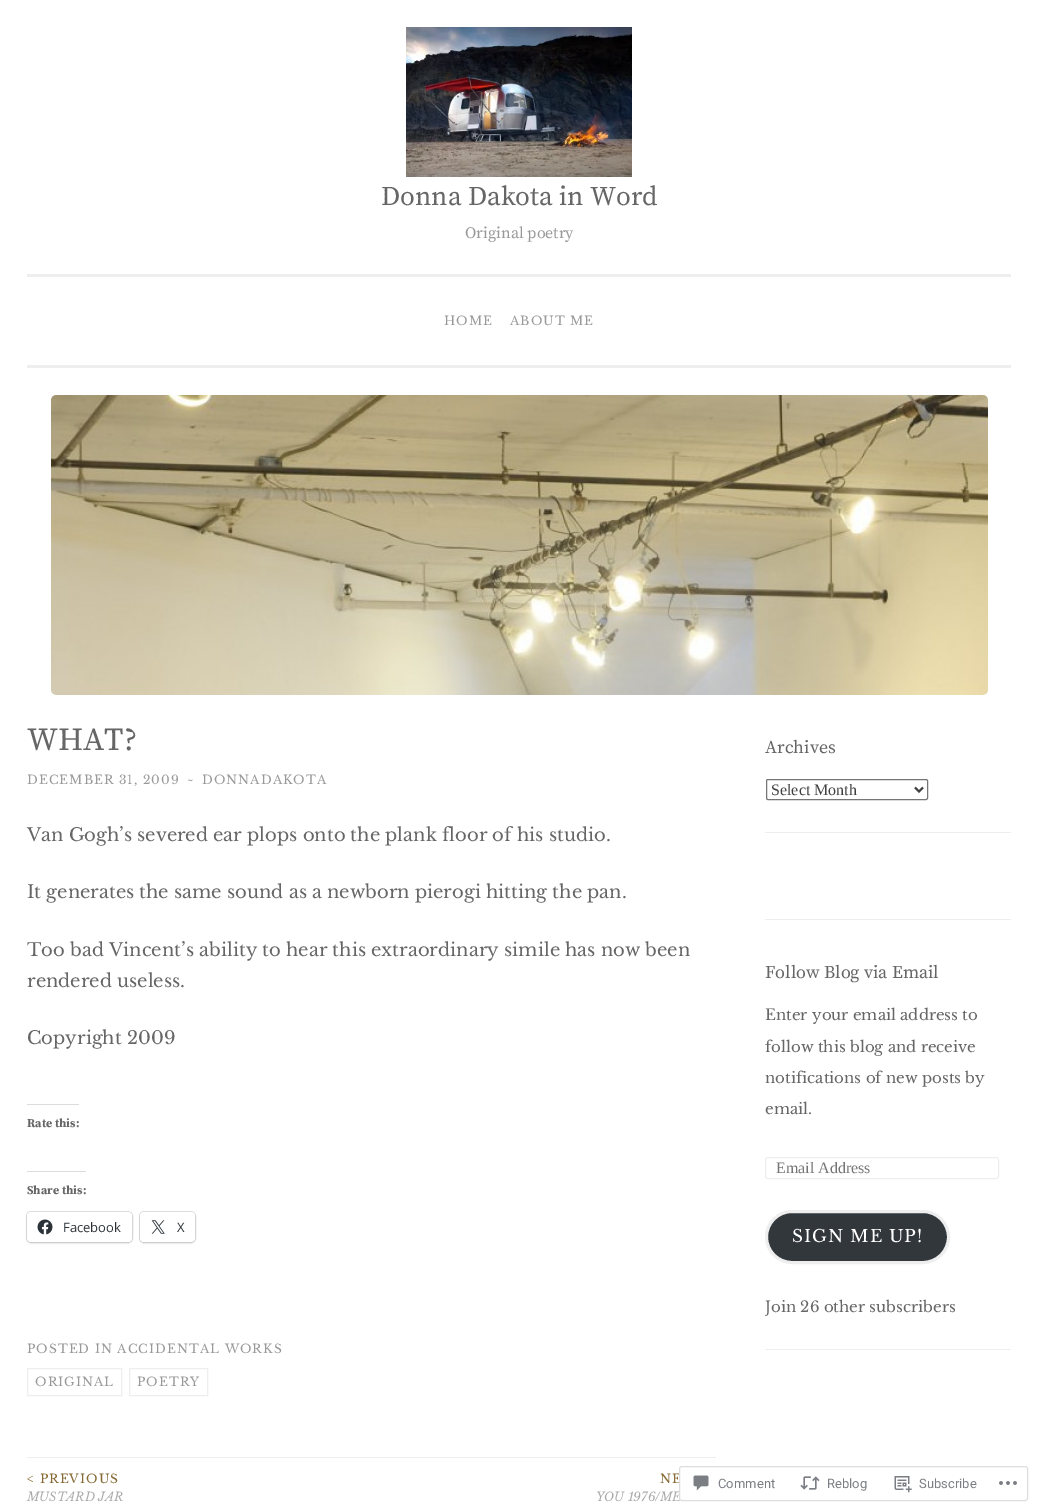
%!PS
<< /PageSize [1038 1511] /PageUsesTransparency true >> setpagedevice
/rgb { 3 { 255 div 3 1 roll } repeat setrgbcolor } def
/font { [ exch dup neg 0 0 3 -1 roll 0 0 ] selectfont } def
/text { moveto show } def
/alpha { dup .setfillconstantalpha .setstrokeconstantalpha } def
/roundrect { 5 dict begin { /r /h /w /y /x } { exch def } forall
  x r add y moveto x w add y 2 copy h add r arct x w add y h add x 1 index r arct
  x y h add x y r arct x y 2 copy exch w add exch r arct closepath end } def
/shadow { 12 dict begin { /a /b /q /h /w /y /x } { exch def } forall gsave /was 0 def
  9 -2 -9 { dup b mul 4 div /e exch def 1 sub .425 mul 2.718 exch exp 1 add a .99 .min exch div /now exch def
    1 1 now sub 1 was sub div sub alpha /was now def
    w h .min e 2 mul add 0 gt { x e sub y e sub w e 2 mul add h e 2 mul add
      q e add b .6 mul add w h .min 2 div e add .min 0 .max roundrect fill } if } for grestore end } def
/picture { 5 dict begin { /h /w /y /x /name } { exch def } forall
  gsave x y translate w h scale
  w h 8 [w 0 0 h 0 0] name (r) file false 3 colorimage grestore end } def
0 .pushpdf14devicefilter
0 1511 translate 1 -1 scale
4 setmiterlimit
255 255 255 rgb
0 0 1038 1511 rectfill
238 238 238 rgb
27 365 984 3 rectfill
(img_01.rgb) 406 27 226 150 picture
27 274 984 3 rectfill
(img_02.rgb) 51 395 937 300 picture
220 220 222 rgb
27 1104 52 1 rectfill
27 1171 59 1 rectfill
224 224 224 rgb
26.5 1211.5 106 31 4.5 roundrect stroke
0 0 0 rgb
27 1213 105 30 4 1 0.12 shadow
255 255 255 rgb
27 1212 105 30 4 roundrect fill
(img_03.rgb) 37 1219 16 16 picture
224 224 224 rgb
139.5 1211.5 56 31 4.5 roundrect stroke
0 0 0 rgb
140 1213 55 30 4 1 0.12 shadow
255 255 255 rgb
140 1212 55 30 4 roundrect fill
(img_04.rgb) 151 1220 14 14 picture
238 238 238 rgb
27.5 1368.5 94 27 rectstroke
129.5 1368.5 78 27 rectstroke
27 1457 689 1 rectfill
765 832 246 1 rectfill
118 118 118 rgb
766.5 779.5 161 20 1.5 roundrect stroke
64 64 64 rgb
2 setlinewidth
915 787.5 moveto 4 4 rlineto 4 -4 rlineto stroke
238 238 238 rgb
765 919 246 1 rectfill
765 1349 246 1 rectfill
1 setlinewidth
765.5 1157.5 233 21 2.5 roundrect stroke
50 55 60 rgb
766.5 1211.5 182 51 25.5 roundrect gsave fill grestore
238 238 238 rgb
3 setlinewidth
stroke
/SourceSerifPro-Regular 27 font
102 102 102 rgb
(Donna Dakota in Word) 381 205 text
/SourceSerifPro-Regular 16 font
153 153 153 rgb
(Original poetry) 465 238 text
/LibreBaskerville-Regular 12.2 font
444 325 moveto 1 0 (HOME) ashow
510 325 moveto 1 0 (ABOUT ME) ashow
/SourceSerifPro-Regular 32 font
102 102 102 rgb
(WHAT?) 27 750 text
/LibreBaskerville-Regular 12.2 font
153 153 153 rgb
27 784 moveto 1 0 (DECEMBER 31, 2009) ashow
187 784 moveto 1 0 (~) ashow
202 784 moveto 1 0 (DONNADAKOTA) ashow
/LibreBaskerville-Regular 18 font
102 102 102 rgb
(Van Gogh’s severed ear plops onto the plank floor of his studio.) 27 841 text
(It generates the same sound as a newborn pierogi hitting the pan.) 27 898 text
(Too bad Vincent’s ability to hear this extraordinary simile has now been) 27 956 text
(rendered useless.) 27 987 text
(Copyright 2009) 27 1044 text
/SourceSerifPro-Bold 12 font
(Rate this:) 27 1127 text
(Share this:) 27 1194 text
/OpenSans-Regular 13 font
44 51 56 rgb
(Facebook) 63 1232 text
(X) 177 1232 text
/LibreBaskerville-Regular 12.2 font
153 153 153 rgb
27 1353 moveto 1 0 (POSTED IN ACCIDENTAL WORKS) ashow
35 1386 moveto 1 0 (ORIGINAL) ashow
137 1386 moveto 1 0 (POETRY) ashow
134 105 53 rgb
27 1483 moveto 1 0 (< PREVIOUS) ashow
/LibreBaskerville-Italic 12.2 font
170 170 170 rgb
(MUSTARD JAR) 27 1501 text
/LibreBaskerville-Regular 12.2 font
134 105 53 rgb
660 1483 moveto 1 0 (NE) ashow
/LibreBaskerville-Italic 12.2 font
170 170 170 rgb
(YOU 1976/ME) 596 1501 text
/SourceSerifPro-Regular 18 font
102 102 102 rgb
(Archives) 765 753 text
/LiberationSerif-Regular 16 font
64 64 64 rgb
(Select Month) 771 795 text
/SourceSerifPro-Regular 18 font
102 102 102 rgb
(Follow Blog via Email) 765 978 text
/LibreBaskerville-Regular 15 font
(Enter your email address to) 765 1020 text
(follow this blog and receive) 765 1052 text
(notifications of new posts by) 765 1083 text
(email.) 765 1114 text
/LiberationSerif-Regular 16 font
117 117 117 rgb
(Email Address) 776 1173 text
/LibreBaskerville-Regular 17 font
255 255 255 rgb
792 1242 moveto 1 0 (SIGN ME UP!) ashow
gsave
765 947 246 402 rectclip
/LibreBaskerville-Regular 15 font
102 102 102 rgb
(Join 26 other subscribers) 765 1312 text
grestore
0.98 alpha
679 1466 349 35 3 roundrect fill
220 220 222 rgb
1 setlinewidth
679.5 1466.5 348 34 2.5 roundrect stroke
1 alpha
(img_05.rgb) 693 1475 16 16 picture
/Roboto-Regular 13 font
123 127 133 rgb
(Comment) 718 1488 text
(img_06.rgb) 800 1476 20 14 picture
(Reblog) 827 1488 text
(img_07.rgb) 894 1476 18 17 picture
(Subscribe) 919 1488 text
(img_08.rgb) 999 1481 18 4 picture
.poppdf14devicefilter showpage
